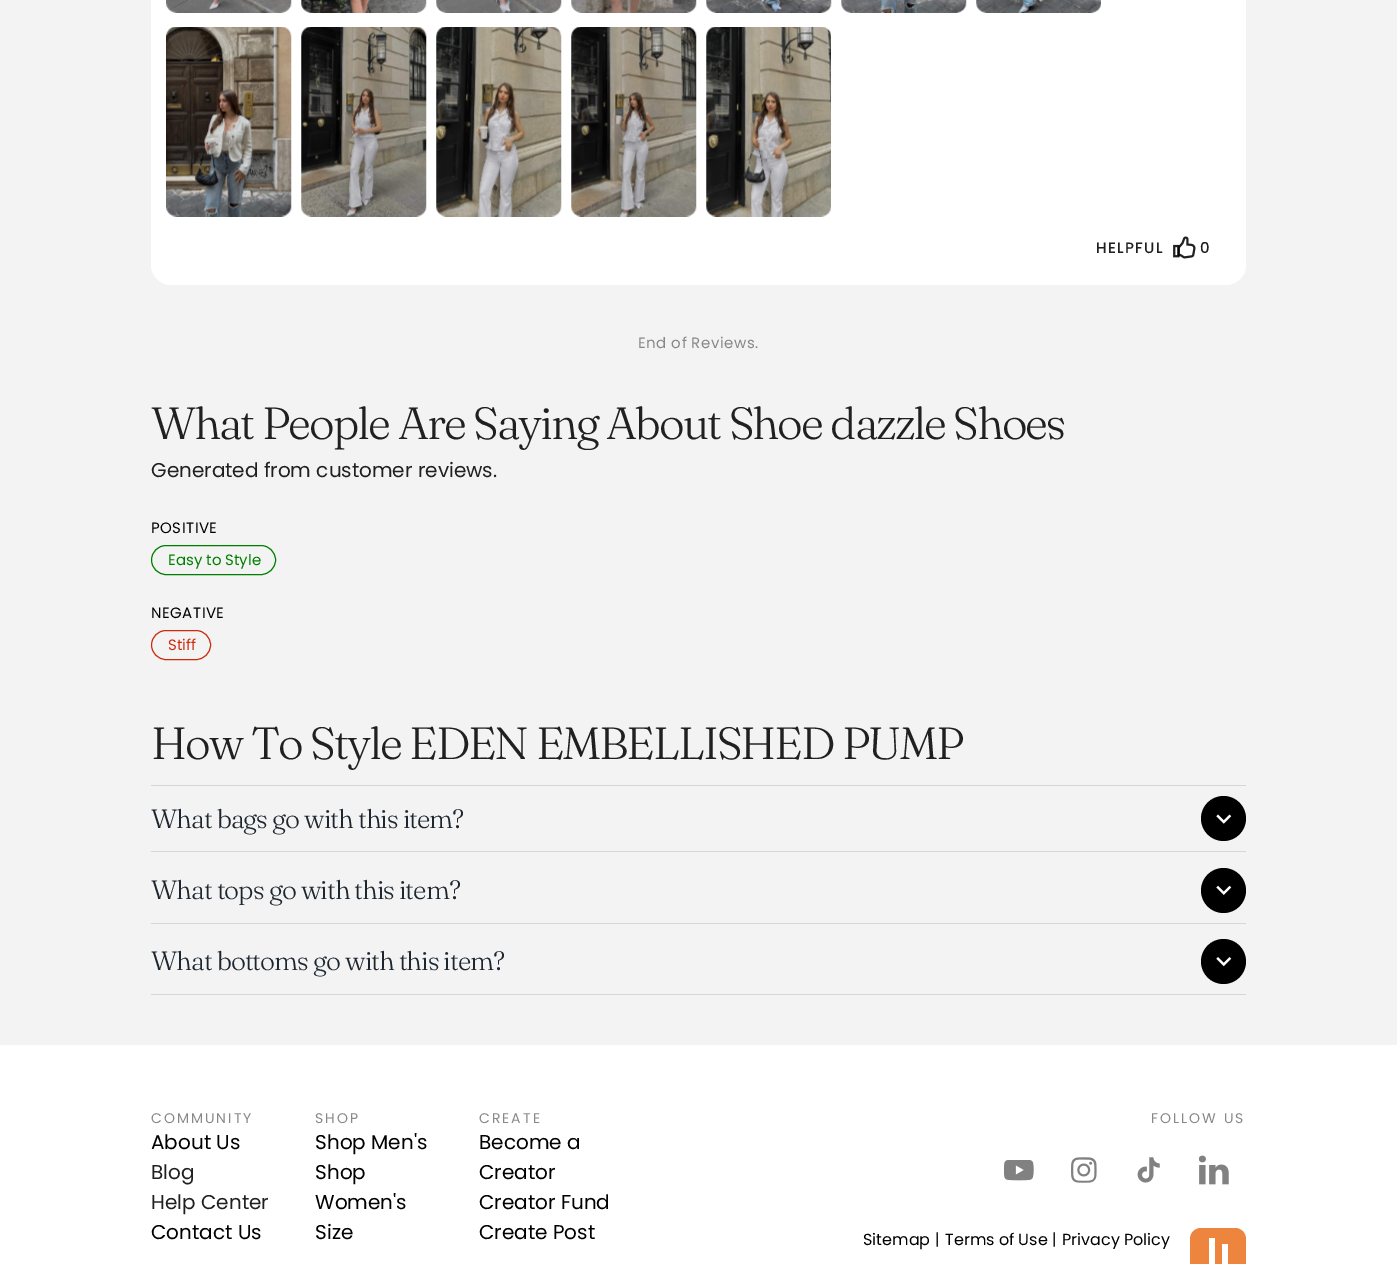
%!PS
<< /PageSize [1397 1264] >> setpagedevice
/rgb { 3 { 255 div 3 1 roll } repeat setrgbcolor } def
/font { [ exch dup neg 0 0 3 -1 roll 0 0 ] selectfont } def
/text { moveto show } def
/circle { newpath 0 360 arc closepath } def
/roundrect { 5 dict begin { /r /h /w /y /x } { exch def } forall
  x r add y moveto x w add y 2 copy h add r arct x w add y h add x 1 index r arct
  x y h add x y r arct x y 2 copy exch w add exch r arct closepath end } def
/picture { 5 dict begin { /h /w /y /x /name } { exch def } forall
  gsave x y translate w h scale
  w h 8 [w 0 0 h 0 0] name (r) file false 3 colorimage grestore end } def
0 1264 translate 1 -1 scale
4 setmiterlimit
243 243 243 rgb
0 0 1397 1264 rectfill
255 255 255 rgb
151 -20 1095 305 20 roundrect fill
(img_01.rgb) 166 0 126 13 picture
(img_02.rgb) 301 0 126 13 picture
(img_03.rgb) 436 0 126 13 picture
(img_04.rgb) 571 0 126 13 picture
(img_05.rgb) 706 0 126 13 picture
(img_06.rgb) 841 0 126 13 picture
(img_07.rgb) 976 0 125 13 picture
(img_08.rgb) 166 27 126 190 picture
(img_09.rgb) 301 27 126 190 picture
(img_10.rgb) 436 27 126 190 picture
(img_11.rgb) 571 27 126 190 picture
(img_12.rgb) 706 27 125 190 picture
(img_13.rgb) 1173 236 23 23 picture
0 128 0 rgb
151.5 545.5 124 29 14.5 roundrect stroke
204 44 13 rgb
151.5 630.5 59 29 14.5 roundrect stroke
214 214 214 rgb
151 785 1095 1 rectfill
0 0 0 rgb
1223.5 818.5 22.5 circle fill
(img_14.rgb) 1216 814 16 10 picture
214 214 214 rgb
151 851 1095 1 rectfill
0 0 0 rgb
1223.5 890.5 22.5 circle fill
(img_15.rgb) 1216 885 16 10 picture
214 214 214 rgb
151 923 1095 1 rectfill
0 0 0 rgb
1223.5 961.5 22.5 circle fill
(img_16.rgb) 1216 957 16 10 picture
214 214 214 rgb
151 994 1095 1 rectfill
255 255 255 rgb
0 1045 1397 219 rectfill
(img_17.rgb) 1004 1160 30 21 picture
(img_18.rgb) 1071 1157 26 26 picture
(img_19.rgb) 1137 1157 23 26 picture
(img_20.rgb) 1199 1155 30 30 picture
237 133 62 rgb
1190 1228 56 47 11 roundrect fill
255 255 255 rgb
1209 1238 6 26 rectfill
1222 1244 6 20 rectfill
/Poppins-Medium 15 font
32 32 32 rgb
1096 253 moveto 1.25 0 (HELPFUL) ashow
1200 253 moveto 1.25 0 (0) ashow
/Poppins-Regular 15 font
136 136 136 rgb
638 348 moveto 0.5 0 (End of Reviews.) ashow
/Fraunces-Light 45 font
32 32 32 rgb
151 439 moveto -2 0 (What People Are Saying About Shoe dazzle Shoes) ashow
/Poppins-Regular 20 font
(Generated from customer reviews.) 151 477 text
/Poppins-Regular 15 font
0 0 0 rgb
151 533 moveto 0.5 0 (POSITIVE) ashow
0 128 0 rgb
(Easy to Style) 168 565 text
0 0 0 rgb
151 618 moveto 0.5 0 (NEGATIVE) ashow
204 44 13 rgb
(Stiff) 168 650 text
/Fraunces-Light 45 font
32 32 32 rgb
151 759 moveto -2 0 (How To Style EDEN EMBELLISHED PUMP) ashow
/Fraunces-Light 26.25 font
29 38 47 rgb
151 828 moveto -1 0 (What bags go with this item?) ashow
151 899 moveto -1 0 (What tops go with this item?) ashow
151 970 moveto -1 0 (What bottoms go with this item?) ashow
/Poppins-Regular 14 font
136 136 136 rgb
151 1123 moveto 2 0 (COMMUNITY) ashow
/Poppins-Regular 20 font
0 0 0 rgb
(About Us) 151 1149 text
32 32 32 rgb
(Blog) 151 1179 text
(Help Center) 151 1209 text
0 0 0 rgb
(Contact Us) 151 1239 text
/Poppins-Regular 14 font
136 136 136 rgb
315 1123 moveto 2 0 (SHOP) ashow
/Poppins-Regular 20 font
0 0 0 rgb
(Shop Men's) 315 1149 text
(Shop) 315 1179 text
(Women's) 315 1209 text
(Size) 315 1239 text
/Poppins-Regular 14 font
136 136 136 rgb
479 1123 moveto 2 0 (CREATE) ashow
/Poppins-Regular 20 font
0 0 0 rgb
(Become a) 479 1149 text
(Creator) 479 1179 text
(Creator Fund) 479 1209 text
(Create Post) 479 1239 text
/Poppins-Regular 14 font
136 136 136 rgb
1151 1123 moveto 2 0 (FOLLOW US) ashow
/Poppins-Regular 16 font
0 0 0 rgb
(Sitemap) 863 1245 text
32 32 32 rgb
(|) 935 1245 text
0 0 0 rgb
(Terms of Use) 945 1245 text
32 32 32 rgb
(|) 1052 1245 text
0 0 0 rgb
(Privacy Policy) 1062 1245 text
showpage
